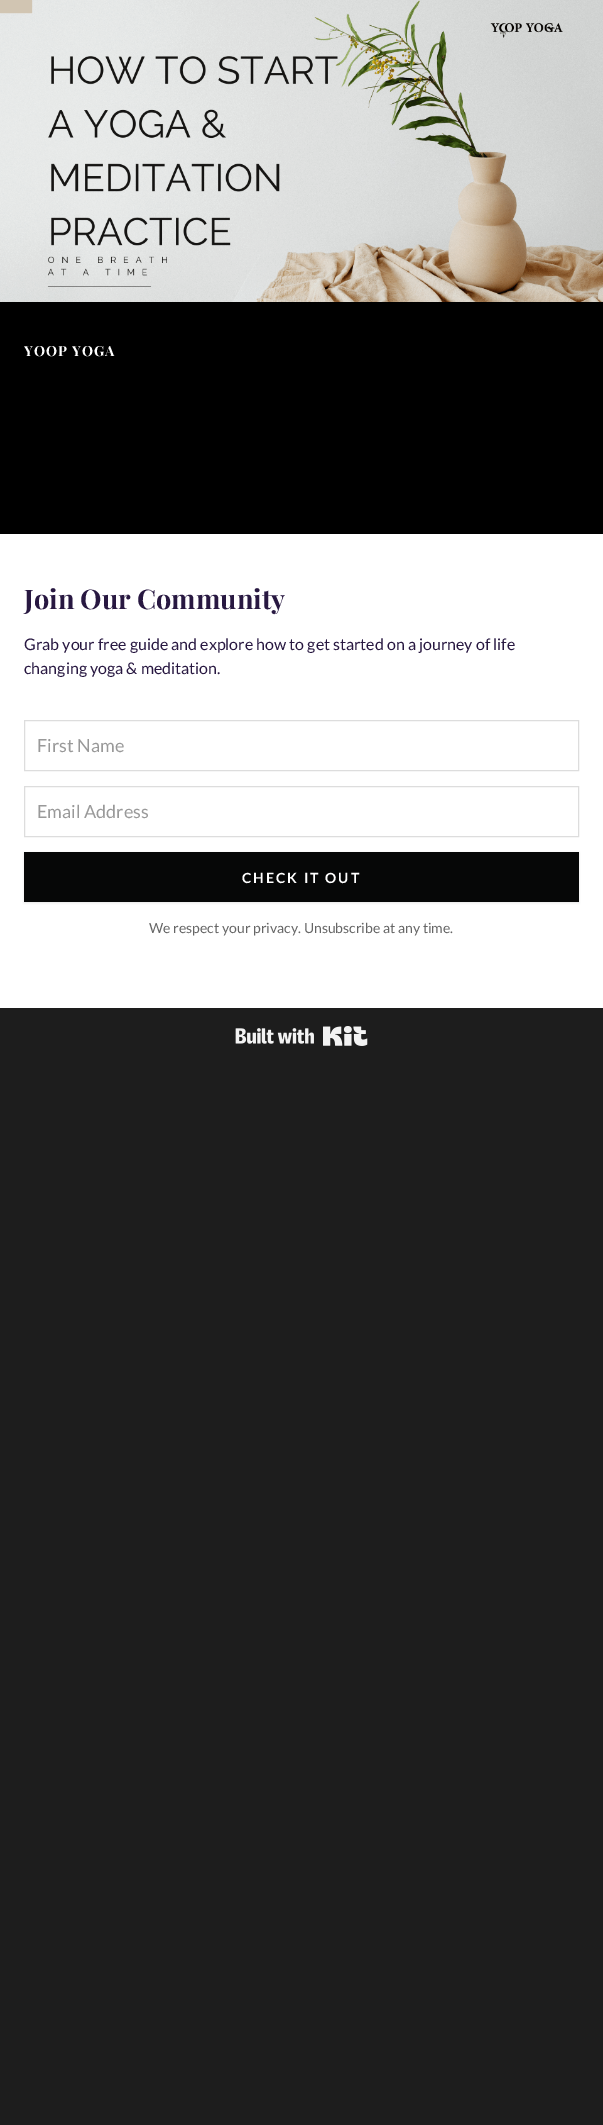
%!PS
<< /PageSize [603 2125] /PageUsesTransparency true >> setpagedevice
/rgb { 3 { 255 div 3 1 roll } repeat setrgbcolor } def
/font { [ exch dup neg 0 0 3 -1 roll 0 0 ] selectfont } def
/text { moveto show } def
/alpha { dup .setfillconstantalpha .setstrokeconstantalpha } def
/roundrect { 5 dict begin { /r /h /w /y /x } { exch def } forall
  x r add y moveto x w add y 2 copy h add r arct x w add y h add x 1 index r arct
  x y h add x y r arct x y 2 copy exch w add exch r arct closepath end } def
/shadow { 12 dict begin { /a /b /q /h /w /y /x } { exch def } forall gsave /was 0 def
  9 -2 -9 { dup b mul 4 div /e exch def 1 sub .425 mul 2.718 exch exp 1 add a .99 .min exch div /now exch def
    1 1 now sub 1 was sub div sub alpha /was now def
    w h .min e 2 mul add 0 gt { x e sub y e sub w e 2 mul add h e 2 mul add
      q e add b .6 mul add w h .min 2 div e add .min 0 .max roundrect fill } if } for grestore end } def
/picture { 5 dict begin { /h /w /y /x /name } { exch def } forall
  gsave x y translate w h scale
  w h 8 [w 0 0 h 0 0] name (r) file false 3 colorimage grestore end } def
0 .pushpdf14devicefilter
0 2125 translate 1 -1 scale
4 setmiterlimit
29 29 29 rgb
0 0 603 2125 rectfill
0 0 0 rgb
0 0 603 534 rectfill
(img_01.rgb) 0 0 603 302 picture
255 255 255 rgb
0 534 603 474 rectfill
221 221 221 rgb
24.5 720.5 554 50 rectstroke
24.5 786.5 554 50 rectstroke
0 0 0 rgb
24 853 555 50 0 1 0.1 shadow
6 7 7 rgb
24 852 555 50 rectfill
(img_02.rgb) 235 1026 133 20 picture
/PlayfairDisplay-Bold 14 font
255 255 255 rgb
24 356 moveto 1 0 (YOOP YOGA) ashow
/PlayfairDisplay-Bold 27 font
40 24 65 rgb
(Join Our Community) 24 609 text
/Lato-Regular 16 font
(Grab your free guide and explore how to get started on a journey of life) 24 650 text
(changing yoga & meditation.) 24 674 text
/Lato-Regular 18 font
153 153 153 rgb
(First Name) 37 752 text
(Email Address) 37 818 text
/Lato-Bold 14 font
255 255 255 rgb
242 883 moveto 2 0 (CHECK IT OUT) ashow
/Lato-Regular 14 font
102 102 102 rgb
(We respect your privacy. Unsubscribe at any time.) 149 933 text
.poppdf14devicefilter showpage
